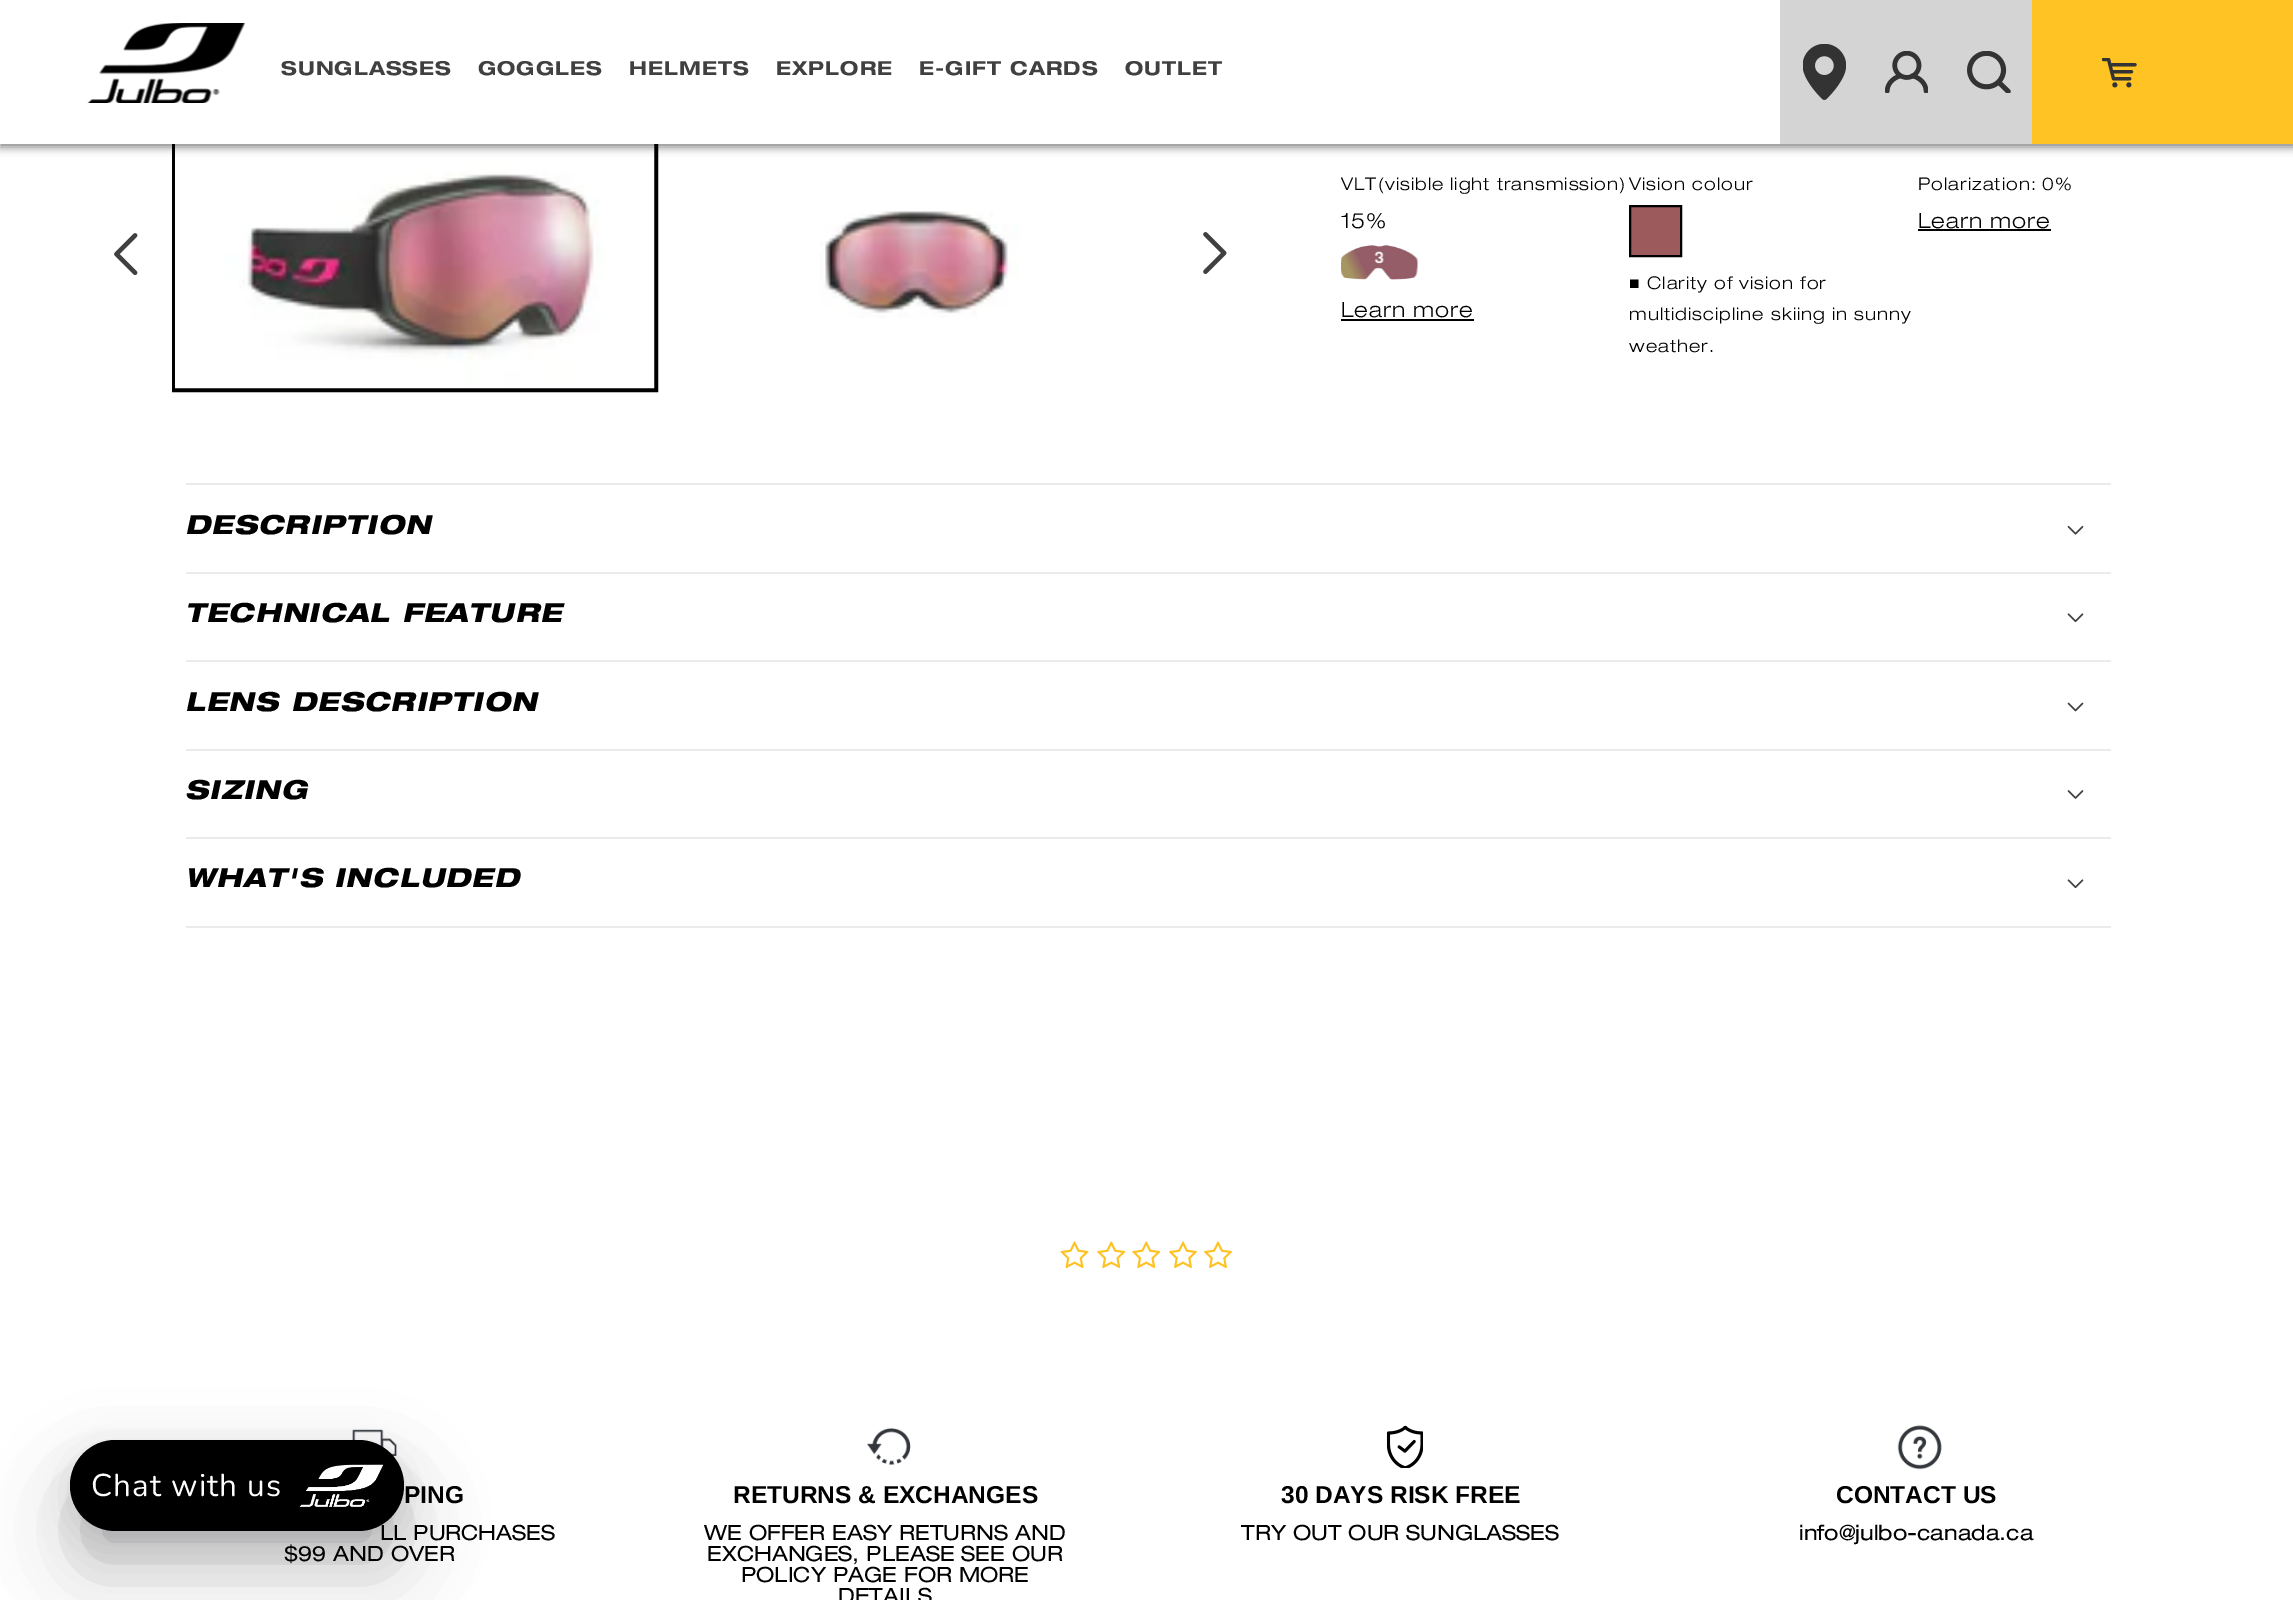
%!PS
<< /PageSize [2293 1600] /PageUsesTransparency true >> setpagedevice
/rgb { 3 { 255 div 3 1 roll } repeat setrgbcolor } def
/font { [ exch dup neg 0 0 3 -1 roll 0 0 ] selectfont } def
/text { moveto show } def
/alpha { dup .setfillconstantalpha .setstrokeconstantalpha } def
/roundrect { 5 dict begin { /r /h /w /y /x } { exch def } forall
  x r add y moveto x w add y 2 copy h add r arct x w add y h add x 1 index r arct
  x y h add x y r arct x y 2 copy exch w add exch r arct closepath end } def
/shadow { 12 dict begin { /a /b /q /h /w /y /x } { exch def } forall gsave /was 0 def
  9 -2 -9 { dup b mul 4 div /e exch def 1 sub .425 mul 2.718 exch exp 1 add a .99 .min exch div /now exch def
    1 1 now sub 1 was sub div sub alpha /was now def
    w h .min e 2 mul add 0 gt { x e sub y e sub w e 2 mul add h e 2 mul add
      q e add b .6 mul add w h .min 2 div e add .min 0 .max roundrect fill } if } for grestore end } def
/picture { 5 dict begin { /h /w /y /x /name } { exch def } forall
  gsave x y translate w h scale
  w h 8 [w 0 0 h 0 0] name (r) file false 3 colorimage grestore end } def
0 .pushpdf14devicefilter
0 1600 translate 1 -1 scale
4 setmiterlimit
255 255 255 rgb
0 0 2293 1600 rectfill
0 0 0 rgb
2 setlinewidth
173 117 484 274 rectstroke
174 118 481 271 rectstroke
(img_07.rgb) 175 144 480 245 picture
0 4 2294 143 0 4.5 0.5 shadow
255 255 255 rgb
0 0 1780 144 rectfill
(img_01.rgb) 87 23 159 80 picture
212 212 212 rgb
1780 0 252 144 rectfill
(img_02.rgb) 1803 44 43 56 picture
(img_03.rgb) 1885 51 43 42 picture
(img_04.rgb) 1967 51 44 42 picture
255 195 35 rgb
2032 0 261 144 rectfill
(img_05.rgb) 2102 58 35 30 picture
(img_06.rgb) 114 233 24 42 picture
(img_08.rgb) 820 211 200 107 picture
(img_09.rgb) 1203 232 24 42 picture
(img_10.rgb) 1341 245 77 35 picture
0 0 0 rgb
1341 319 133 2 rectfill
156 90 92 rgb
1630 206 moveto 51 0 rlineto 0 50 rlineto -51 0 rlineto closepath gsave fill grestore
0 0 0 rgb
stroke
1918 229 133 2 rectfill
235 235 235 rgb
186 483 1925 2 rectfill
186 572 1925 2 rectfill
(img_11.rgb) 2067 525 17 10 picture
186 660 1925 2 rectfill
(img_12.rgb) 2067 613 17 10 picture
186 749 1925 2 rectfill
(img_13.rgb) 2067 702 17 10 picture
186 837 1925 2 rectfill
(img_14.rgb) 2067 790 17 9 picture
186 926 1925 2 rectfill
(img_12.rgb) 2067 879 17 10 picture
(img_15.rgb) 1060 1241 29 28 picture
(img_16.rgb) 1097 1241 29 28 picture
(img_16.rgb) 1132 1241 29 28 picture
(img_17.rgb) 1169 1241 28 28 picture
(img_17.rgb) 1204 1241 28 28 picture
(img_19.rgb) 352 1429 45 28 picture
0 0 0 rgb
91 1505 292 49 24.5 44 0.25 shadow
60 66 87 rgb
70 1474 334 91 45.5 39 0.08 shadow
0 0 0 rgb
70 1451 334 91 45.5 16.5 0.12 shadow
70 1440 334 91 45.5 roundrect fill
(img_18.rgb) 299 1464 85 43 picture
(img_20.rgb) 867 1428 44 37 picture
(img_21.rgb) 1386 1425 37 43 picture
(img_22.rgb) 1897 1425 45 45 picture
/HelveticaNeue-Bold 19.25 font
64 64 64 rgb
281 75 moveto 1.05 0 (SUNGLASSES) ashow
478 75 moveto 1.05 0 (GOGGLES) ashow
629 75 moveto 1.05 0 (HELMETS) ashow
776 75 moveto 1.05 0 (EXPLORE) ashow
919 75 moveto 1.05 0 (E-GIFT CARDS) ashow
1125 75 moveto 1.05 0 (OUTLET) ashow
/HelveticaNeue-Light 17.5 font
0 0 0 rgb
1341 190 moveto 1.05 0 (VLT\(visible light transmission\)) ashow
/HelveticaNeue-Light 21 font
1341 228 moveto 1.05 0 (15%) ashow
1341 317 moveto 1.05 0 (Learn more) ashow
/HelveticaNeue-Light 17.5 font
1629 190 moveto 1.05 0 (Vision colour) ashow
/LiberationSerif-Regular 17.5 font
1629 289 moveto 1.05 0 (■) ashow
/HelveticaNeue-Light 17.5 font
1647 289 moveto 1.05 0 (Clarity of vision for) ashow
1629 320 moveto 1.05 0 (multidiscipline skiing in sunny) ashow
1629 352 moveto 1.05 0 (weather.) ashow
1918 190 moveto 1.05 0 (Polarization: 0%) ashow
/HelveticaNeue-Light 21 font
1918 228 moveto 1.05 0 (Learn more) ashow
/HelveticaNeue-BoldItalic 26.25 font
185 534 moveto 1.05 0 (DESCRIPTION) ashow
185 622 moveto 1.05 0 (TECHNICAL FEATURE) ashow
185 711 moveto 1.05 0 (LENS DESCRIPTION) ashow
185 799 moveto 1.05 0 (SIZING) ashow
185 887 moveto 1.05 0 (WHAT'S INCLUDED) ashow
/Nunito-Regular 31.5 font
255 255 255 rgb
91 1496 moveto 1.05 0 (Chat with us) ashow
/LiberationSans-Bold 24.5 font
0 0 0 rgb
(PING) 404 1503 text
/HelveticaNeue-Regular 21 font
(LL PURCHASES) 380 1540 text
($99 AND OVER) 284 1561 text
/LiberationSans-Bold 24.5 font
(RETURNS & EXCHANGES) 733 1503 text
/HelveticaNeue-Regular 21 font
(WE OFFER EASY RETURNS AND) 704 1540 text
(EXCHANGES, PLEASE SEE OUR) 707 1561 text
(POLICY PAGE FOR MORE) 741 1582 text
(DETAILS) 838 1603 text
/LiberationSans-Bold 24.5 font
(30 DAYS RISK FREE) 1281 1503 text
/HelveticaNeue-Regular 21 font
(TRY OUT OUR SUNGLASSES) 1241 1540 text
/LiberationSans-Bold 24.5 font
(CONTACT US) 1836 1503 text
/HelveticaNeue-Regular 21 font
(info@julbo-canada.ca) 1799 1540 text
.poppdf14devicefilter showpage
